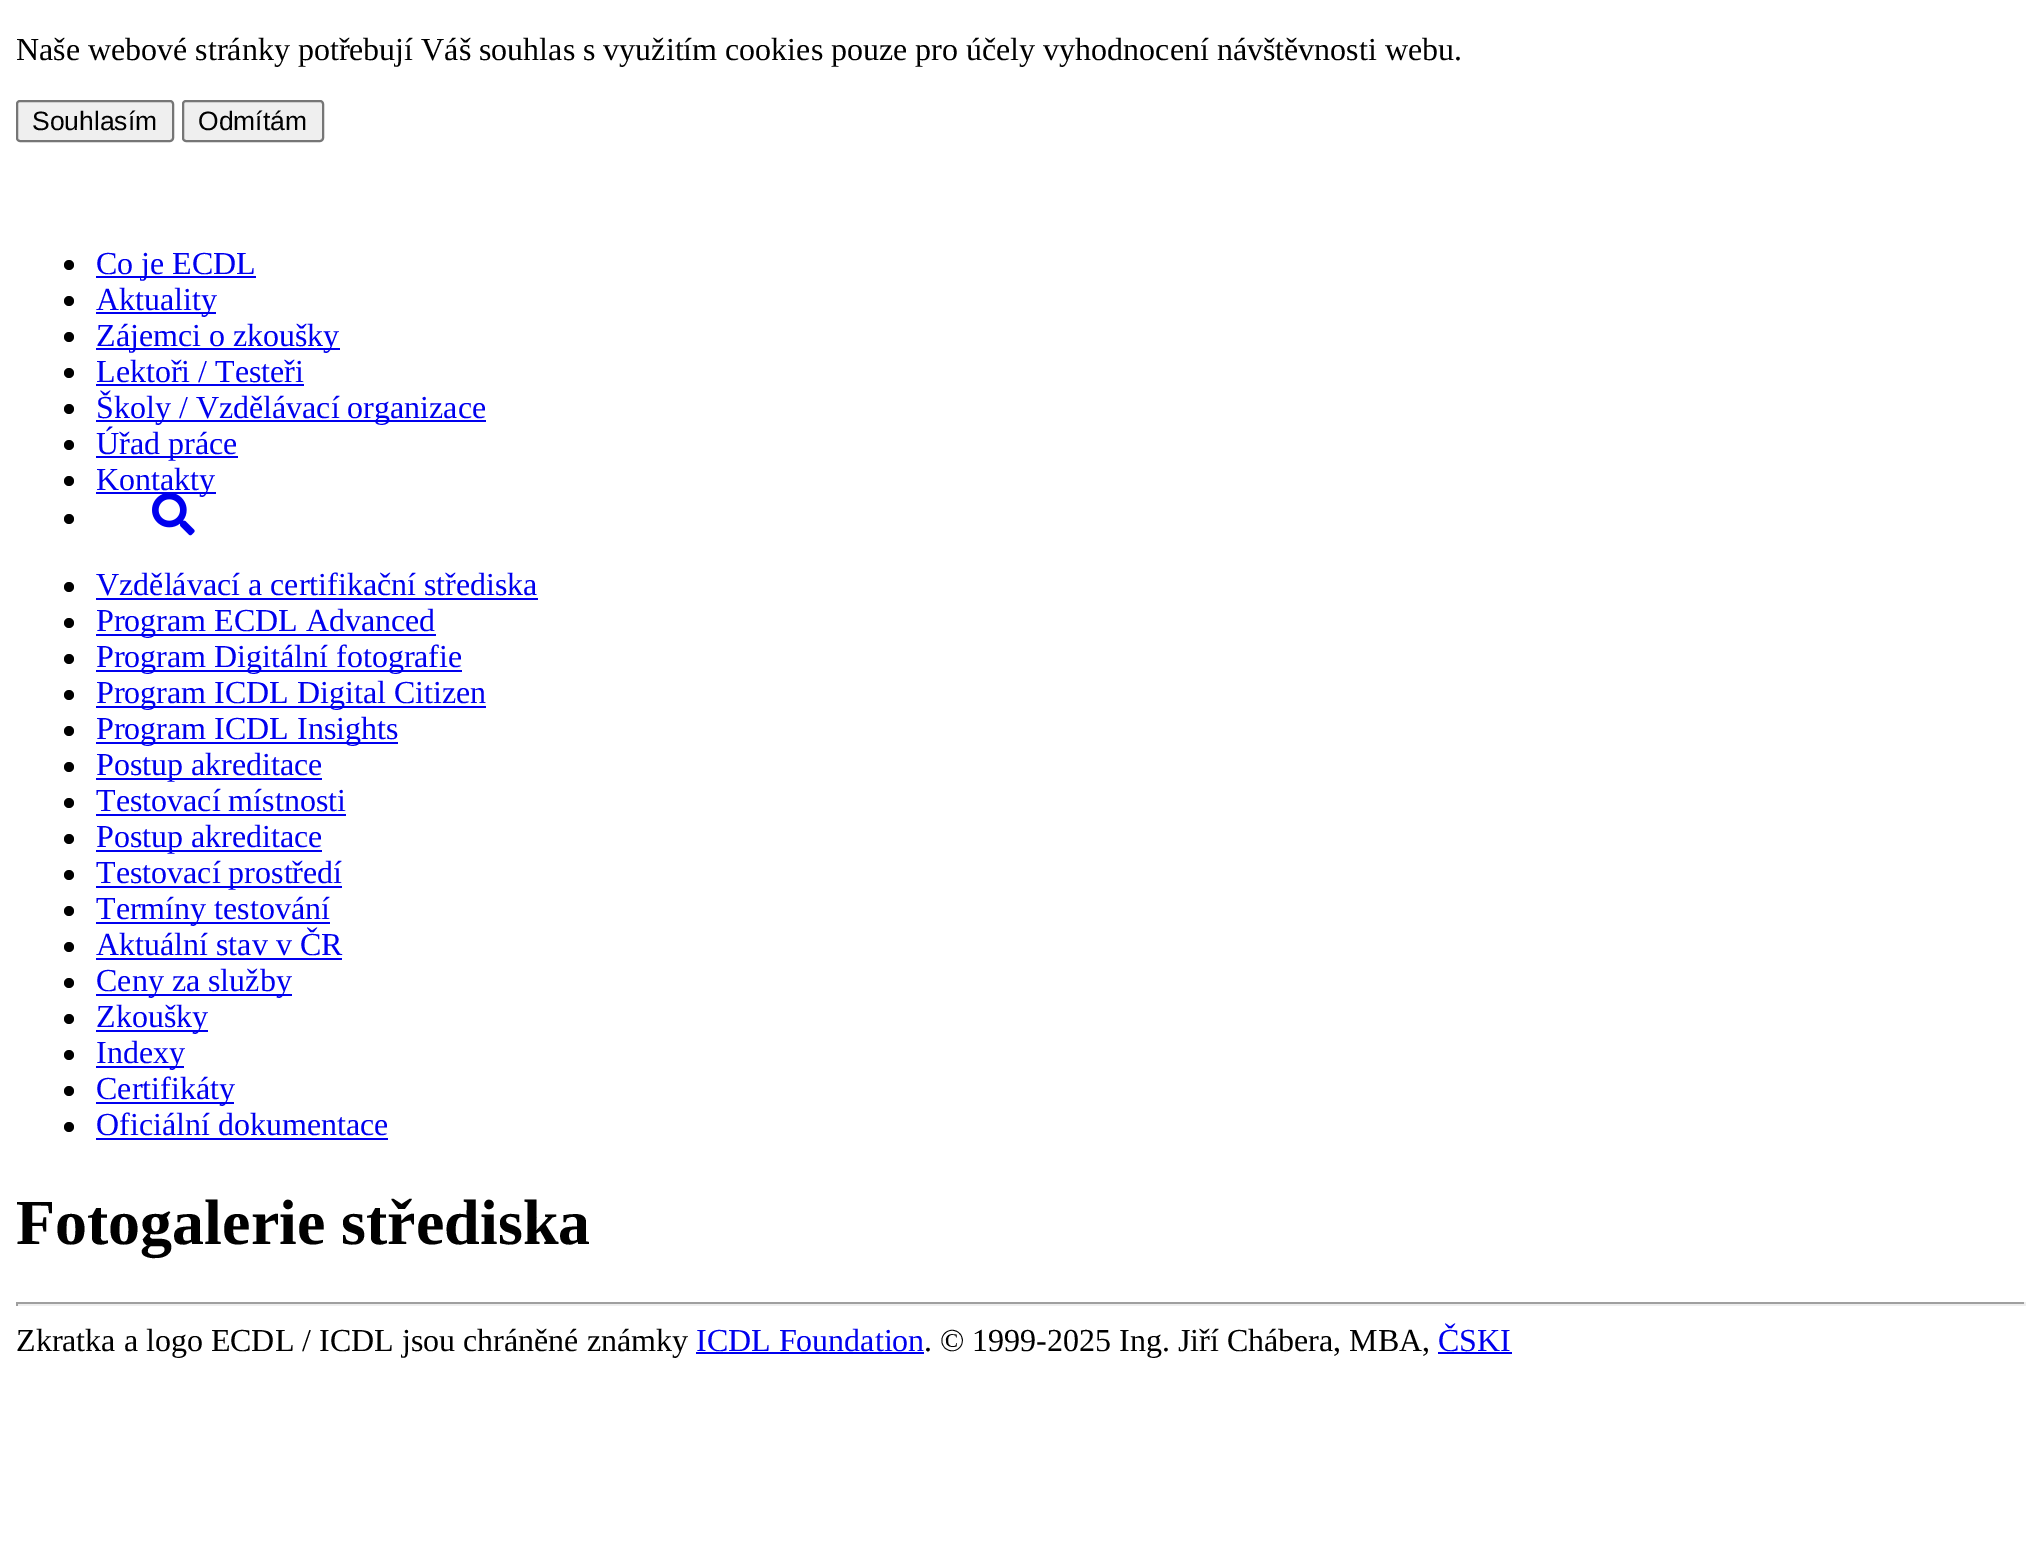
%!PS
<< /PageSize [2041 1563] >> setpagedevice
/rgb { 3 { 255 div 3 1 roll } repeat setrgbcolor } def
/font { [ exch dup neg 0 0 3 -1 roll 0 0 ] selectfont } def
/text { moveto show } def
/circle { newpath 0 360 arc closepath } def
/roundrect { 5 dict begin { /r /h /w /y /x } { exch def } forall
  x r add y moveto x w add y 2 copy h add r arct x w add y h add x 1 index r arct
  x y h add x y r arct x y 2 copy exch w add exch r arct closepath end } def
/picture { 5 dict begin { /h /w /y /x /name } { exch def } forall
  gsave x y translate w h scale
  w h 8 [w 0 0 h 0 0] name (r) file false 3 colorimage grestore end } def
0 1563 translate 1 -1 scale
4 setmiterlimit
255 255 255 rgb
0 0 2041 1563 rectfill
239 239 239 rgb
17 101 156 40 3 roundrect gsave fill grestore
118 118 118 rgb
2 setlinewidth
stroke
239 239 239 rgb
183 101 140 40 3 roundrect gsave fill grestore
118 118 118 rgb
stroke
0 0 0 rgb
69 265 5 circle fill
0 0 238 rgb
96 276 160 2 rectfill
0 0 0 rgb
69 301 5 circle fill
0 0 238 rgb
96 312 120 2 rectfill
0 0 0 rgb
69 337 5 circle fill
0 0 238 rgb
96 348 244 2 rectfill
0 0 0 rgb
69 373 5 circle fill
0 0 238 rgb
96 384 208 2 rectfill
0 0 0 rgb
69 409 5 circle fill
0 0 238 rgb
96 420 390 2 rectfill
0 0 0 rgb
69 445 5 circle fill
0 0 238 rgb
96 456 142 2 rectfill
0 0 0 rgb
69 481 5 circle fill
0 0 238 rgb
96 492 120 2 rectfill
0 0 0 rgb
69 519 5 circle fill
69 587 5 circle fill
0 0 238 rgb
96 598 442 2 rectfill
0 0 0 rgb
69 623 5 circle fill
0 0 238 rgb
96 634 340 2 rectfill
0 0 0 rgb
69 659 5 circle fill
0 0 238 rgb
96 670 366 2 rectfill
0 0 0 rgb
69 695 5 circle fill
0 0 238 rgb
96 706 390 2 rectfill
0 0 0 rgb
69 731 5 circle fill
0 0 238 rgb
96 742 302 2 rectfill
0 0 0 rgb
69 767 5 circle fill
0 0 238 rgb
96 778 226 2 rectfill
0 0 0 rgb
69 803 5 circle fill
0 0 238 rgb
96 814 250 2 rectfill
0 0 0 rgb
69 839 5 circle fill
0 0 238 rgb
96 850 226 2 rectfill
0 0 0 rgb
69 875 5 circle fill
0 0 238 rgb
96 886 246 2 rectfill
0 0 0 rgb
69 911 5 circle fill
0 0 238 rgb
96 922 234 2 rectfill
0 0 0 rgb
69 947 5 circle fill
0 0 238 rgb
96 958 246 2 rectfill
0 0 0 rgb
69 983 5 circle fill
0 0 238 rgb
96 994 196 2 rectfill
0 0 0 rgb
69 1019 5 circle fill
0 0 238 rgb
96 1030 112 2 rectfill
0 0 0 rgb
69 1055 5 circle fill
0 0 238 rgb
96 1066 88 2 rectfill
0 0 0 rgb
69 1091 5 circle fill
0 0 238 rgb
96 1102 138 2 rectfill
0 0 0 rgb
69 1127 5 circle fill
0 0 238 rgb
96 1138 292 2 rectfill
159 159 159 rgb
16 1302 2010 2 rectfill
238 238 238 rgb
2024 1302 2 4 rectfill
16 1304 2010 2 rectfill
159 159 159 rgb
16 1302 2 4 rectfill
0 0 238 rgb
696 1352 228 2 rectfill
1438 1352 74 2 rectfill
/LiberationSerif-Regular 32 font
0 0 0 rgb
(Naše webové stránky potřebují Váš souhlas s využitím cookies pouze pro účely vyhodnocení návštěvnosti webu.) 16 60 text
/LiberationSans-Regular 26.5 font
(Souhlasím) 32 130 text
(Odmítám) 198 130 text
/LiberationSerif-Regular 32 font
0 0 238 rgb
(Co je ECDL) 96 274 text
(Aktuality) 96 310 text
(Zájemci o zkoušky) 96 346 text
(Lektoři / Testeři) 96 382 text
(Školy / Vzdělávací organizace) 96 418 text
(Úřad práce) 96 454 text
(Kontakty) 96 490 text
(img_01.rgb) 152 494 43 42 picture
(Vzdělávací a certifikační střediska) 96 595 text
(Program ECDL Advanced) 96 631 text
(Program Digitální fotografie) 96 667 text
(Program ICDL Digital Citizen) 96 703 text
(Program ICDL Insights) 96 739 text
(Postup akreditace) 96 775 text
(Testovací místnosti) 96 811 text
(Postup akreditace) 96 847 text
(Testovací prostředí) 96 883 text
(Termíny testování) 96 919 text
(Aktuální stav v ČR) 96 955 text
(Ceny za služby) 96 991 text
(Zkoušky) 96 1027 text
(Indexy) 96 1063 text
(Certifikáty) 96 1099 text
(Oficiální dokumentace) 96 1135 text
/LiberationSerif-Bold 64 font
0 0 0 rgb
(Fotogalerie střediska) 16 1244 text
/LiberationSerif-Regular 32 font
(Zkratka a logo ECDL / ICDL jsou chráněné známky) 16 1351 text
0 0 238 rgb
(ICDL Foundation) 696 1351 text
0 0 0 rgb
(. © 1999-2025 Ing. Jiří Chábera, MBA,) 924 1351 text
0 0 238 rgb
(ČSKI) 1438 1351 text
showpage
